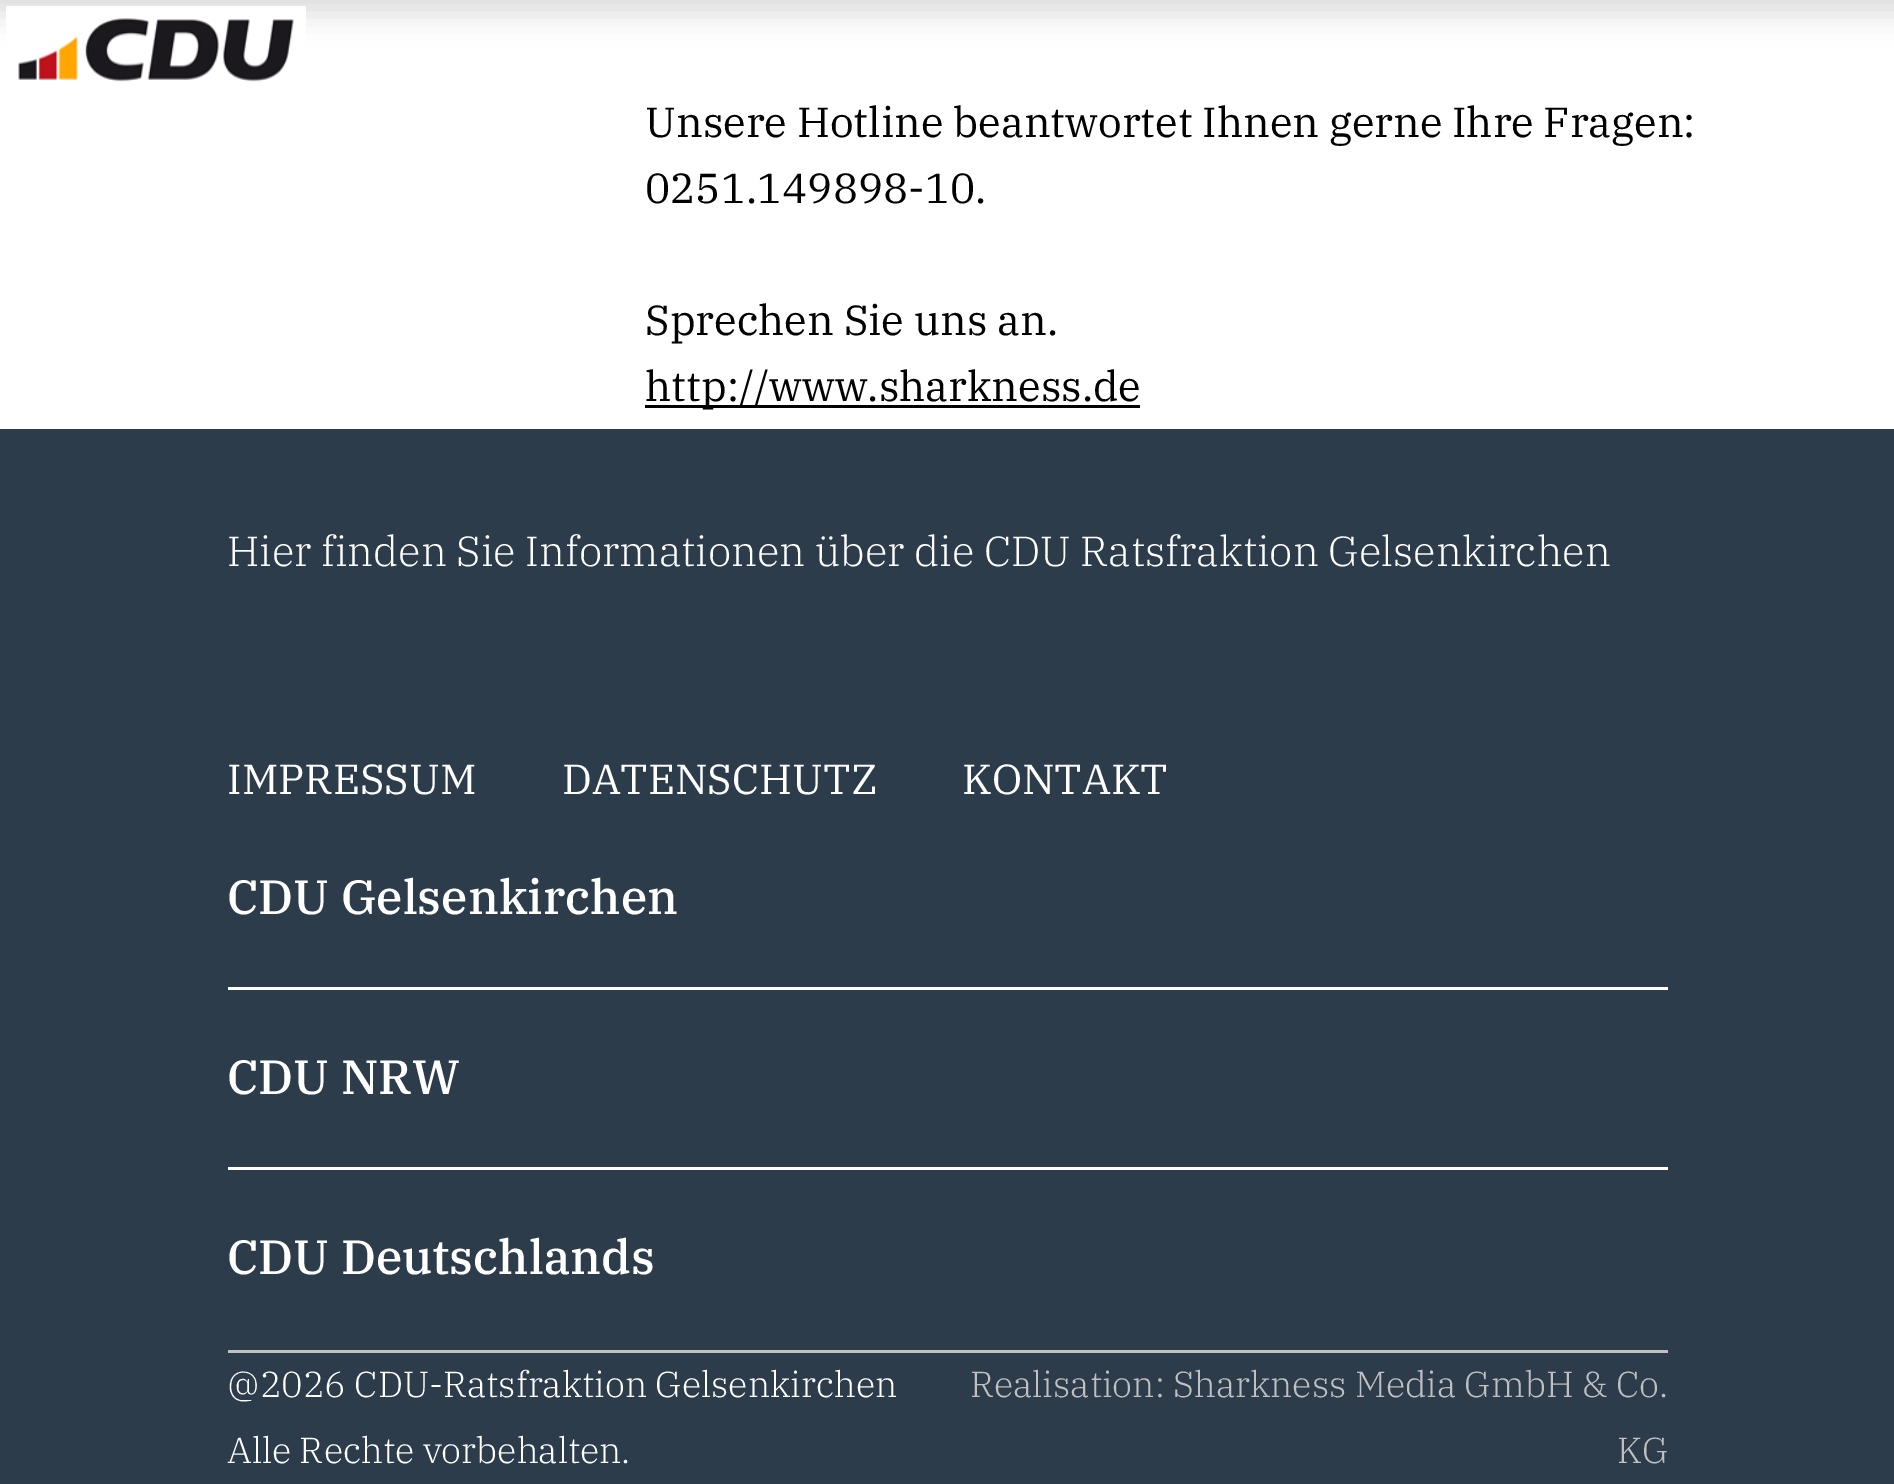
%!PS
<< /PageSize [1894 1484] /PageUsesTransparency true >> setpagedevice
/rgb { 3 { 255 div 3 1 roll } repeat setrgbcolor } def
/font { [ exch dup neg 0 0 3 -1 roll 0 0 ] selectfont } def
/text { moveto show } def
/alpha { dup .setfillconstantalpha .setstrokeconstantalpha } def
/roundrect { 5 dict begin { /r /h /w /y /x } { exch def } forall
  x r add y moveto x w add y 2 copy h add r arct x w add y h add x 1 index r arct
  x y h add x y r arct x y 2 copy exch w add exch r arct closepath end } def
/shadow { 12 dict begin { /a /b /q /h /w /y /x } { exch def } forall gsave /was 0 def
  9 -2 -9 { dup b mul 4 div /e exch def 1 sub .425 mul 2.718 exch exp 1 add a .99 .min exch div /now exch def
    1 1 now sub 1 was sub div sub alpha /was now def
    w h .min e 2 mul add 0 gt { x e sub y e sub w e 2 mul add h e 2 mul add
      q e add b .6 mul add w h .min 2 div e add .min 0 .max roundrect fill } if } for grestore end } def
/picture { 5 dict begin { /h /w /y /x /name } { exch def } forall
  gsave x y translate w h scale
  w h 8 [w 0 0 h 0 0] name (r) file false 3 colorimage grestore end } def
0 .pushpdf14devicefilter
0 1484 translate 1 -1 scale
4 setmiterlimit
255 255 255 rgb
0 0 1894 1484 rectfill
0 0 0 rgb
-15 -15 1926 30 0 15 0.13 shadow
(img_01.rgb) 6 6 300 76 picture
645 405 495 3 rectfill
45 60 75 rgb
0 429 1894 1055 rectfill
255 255 255 rgb
228 987 1440 3 rectfill
228 1167 1440 3 rectfill
192 192 192 rgb
228 1350 1440 3 rectfill
/IBMPlexSerif-Regular 42 font
0 0 0 rgb
(Unsere Hotline beantwortet Ihnen gerne Ihre Fragen:) 645 137 text
(0251.149898-10.) 645 203 text
(Sprechen Sie uns an.) 645 335 text
(http://www.sharkness.de) 645 401 text
/IBMPlexSerif-Light 42 font
255 255 255 rgb
(Hier finden Sie Informationen über die CDU Ratsfraktion Gelsenkirchen) 227 566 text
/IBMPlexSerif-Regular 42 font
(IMPRESSUM) 227 794 text
(DATENSCHUTZ) 562 794 text
(KONTAKT) 962 794 text
/IBMPlexSerif-Medium 48 font
(CDU Gelsenkirchen) 227 914 text
(CDU NRW) 227 1094 text
(CDU Deutschlands) 227 1274 text
/IBMPlexSerif-Light 36 font
(@2026 CDU-Ratsfraktion Gelsenkirchen) 227 1397 text
(Alle Rechte vorbehalten.) 227 1463 text
192 192 192 rgb
(Realisation: Sharkness Media GmbH & Co.) 970 1397 text
(KG) 1617 1463 text
.poppdf14devicefilter showpage
